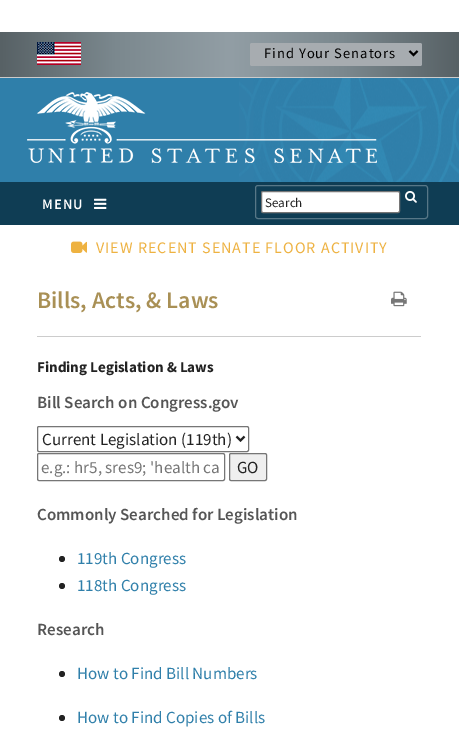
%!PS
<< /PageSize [459 748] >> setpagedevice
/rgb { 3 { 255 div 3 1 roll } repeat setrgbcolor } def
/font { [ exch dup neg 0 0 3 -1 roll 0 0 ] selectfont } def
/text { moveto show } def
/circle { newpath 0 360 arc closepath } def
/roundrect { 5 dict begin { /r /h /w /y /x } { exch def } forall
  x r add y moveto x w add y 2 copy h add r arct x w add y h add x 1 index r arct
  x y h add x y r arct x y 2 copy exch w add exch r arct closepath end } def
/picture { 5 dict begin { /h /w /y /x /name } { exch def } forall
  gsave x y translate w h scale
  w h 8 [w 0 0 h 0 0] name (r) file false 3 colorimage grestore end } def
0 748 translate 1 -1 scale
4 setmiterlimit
255 255 255 rgb
0 0 459 748 rectfill
gsave 0 32 moveto 459 0 rlineto 0 45 rlineto -459 0 rlineto closepath clip newpath
<< /ShadingType 2 /ColorSpace /DeviceRGB /Coords [0 32 459 32] /Extend [true true] /Function << /FunctionType 3 /Domain [0 1] /Functions [<< /FunctionType 2 /Domain [0 1] /C0 [0.341 0.38 0.396] /C1 [0.482 0.533 0.557] /N 1 >> << /FunctionType 2 /Domain [0 1] /C0 [0.482 0.533 0.557] /C1 [0.573 0.62 0.647] /N 1 >> << /FunctionType 2 /Domain [0 1] /C0 [0.573 0.62 0.647] /C1 [0.482 0.533 0.557] /N 1 >> << /FunctionType 2 /Domain [0 1] /C0 [0.482 0.533 0.557] /C1 [0.341 0.38 0.396] /N 1 >>] /Bounds [0.25 0.5 0.75] /Encode [0 1 0 1 0 1 0 1] >> >> shfill grestore
(img_01.rgb) 37 42 44 23 picture
167 172 176 rgb
250 43 172 23 2 roundrect fill
0 0 0 rgb
2 setlinewidth
409.5 51 moveto 4 4 rlineto 4 -4 rlineto stroke
15 61 84 rgb
0 182 459 43 rectfill
(img_02.rgb) 94 198 13 11 picture
47 127 170 rgb
0 78 239 104 rectfill
(img_03.rgb) 239 78 220 104 picture
204 204 204 rgb
0 77 459 1 rectfill
(img_04.rgb) 27 92 350 71 picture
87 119 135 rgb
1 setlinewidth
255.5 185.5 172 33 2.5 roundrect stroke
255 255 255 rgb
261.5 191.5 138 21 1.5 roundrect gsave fill grestore
118 118 118 rgb
stroke
(img_05.rgb) 405 191 12 12 picture
(img_06.rgb) 71 241 16 12 picture
(img_07.rgb) 391 291 16 16 picture
204 204 204 rgb
37 336 384 1 rectfill
118 118 118 rgb
37.5 426.5 211 25 1.5 roundrect stroke
34 34 34 rgb
2 setlinewidth
236.5 436.5 moveto 4 4 rlineto 4 -4 rlineto stroke
118 118 118 rgb
1 setlinewidth
37.5 453.5 187 27 1.5 roundrect stroke
239 239 239 rgb
229.5 453.5 37 27 1.5 roundrect gsave fill grestore
118 118 118 rgb
stroke
34 34 34 rgb
62 559 3 circle fill
62 586 3 circle fill
62 674 3 circle fill
62 718 3 circle fill
/SourceSansPro-Regular 14.5 font
0 0 0 rgb
264 58 moveto 1 0 (Find Your Senators) ashow
/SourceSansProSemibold-SemiBold 14.5 font
255 255 255 rgb
42 209 moveto 1 0 (MENU) ashow
/SourceSansPro-Regular 13 font
34 34 34 rgb
(Search) 265 207 text
/SourceSansPro-Regular 16 font
238 178 65 rgb
96 253 moveto 1 0 (VIEW RECENT SENATE FLOOR ACTIVITY) ashow
/SourceSansProSemibold-SemiBold 23.75 font
169 144 85 rgb
(Bills, Acts, & Laws) 37 308 text
/SourceSansPro-Bold 15 font
34 34 34 rgb
(Finding Legislation & Laws) 37 372 text
/SourceSansProSemibold-SemiBold 17 font
85 85 85 rgb
(Bill Search on Congress.gov) 37 408 text
/SourceSansPro-Regular 17 font
34 34 34 rgb
(Current Legislation \(119th\)) 42 445 text
117 117 117 rgb
(e.g.: hr5, sres9; 'health ca) 41 473 text
34 34 34 rgb
(GO) 237 473 text
/SourceSansProSemibold-SemiBold 17 font
85 85 85 rgb
(Commonly Searched for Legislation) 37 520 text
/SourceSansPro-Regular 17 font
47 127 170 rgb
(119th Congress) 77 564 text
(118th Congress) 77 591 text
/SourceSansProSemibold-SemiBold 17 font
85 85 85 rgb
(Research) 37 635 text
/SourceSansPro-Regular 17 font
47 127 170 rgb
(How to Find Bill Numbers) 77 679 text
(How to Find Copies of Bills) 77 723 text
showpage
